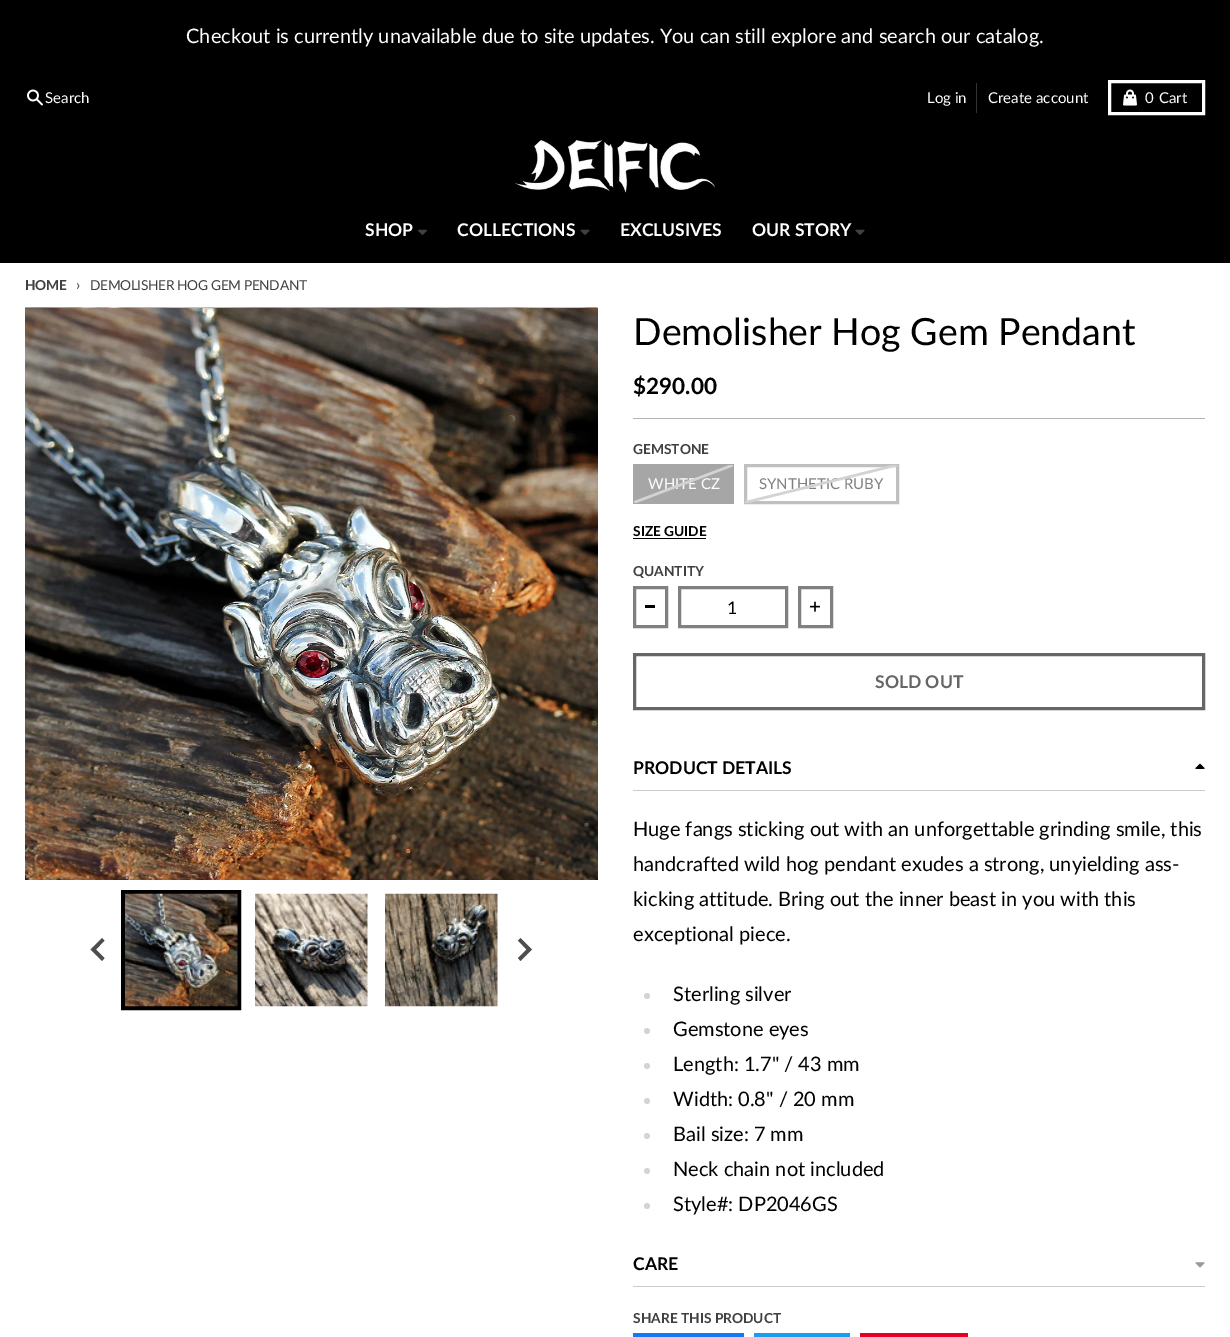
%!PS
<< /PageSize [1230 1337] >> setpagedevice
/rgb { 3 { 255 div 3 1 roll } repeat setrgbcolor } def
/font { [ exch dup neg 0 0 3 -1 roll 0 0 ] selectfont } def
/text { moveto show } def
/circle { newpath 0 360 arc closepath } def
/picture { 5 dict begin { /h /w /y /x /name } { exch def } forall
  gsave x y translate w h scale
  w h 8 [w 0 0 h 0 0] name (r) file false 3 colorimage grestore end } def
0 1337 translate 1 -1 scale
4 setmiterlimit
0 0 0 rgb
0 0 1230 1337 rectfill
(img_01.rgb) 27 89 16 17 picture
51 51 51 rgb
976 83 1 30 rectfill
255 255 255 rgb
3 setlinewidth
1109.5 81.5 94 32 rectstroke
(img_02.rgb) 1123 89 14 17 picture
(img_03.rgb) 515 140 200 53 picture
(img_04.rgb) 418 229 9 6 picture
(img_05.rgb) 580 229 10 6 picture
(img_05.rgb) 855 229 10 6 picture
0 263 1230 1074 rectfill
(img_06.rgb) 25 307 573 1 picture
(img_07.rgb) 25 308 573 572 picture
0 0 0 rgb
4 setlinewidth
123 892 116 116 rectstroke
(img_08.rgb) 125 893 113 114 picture
(img_09.rgb) 255 893 113 114 picture
(img_10.rgb) 385 893 113 114 picture
77 77 77 rgb
102 938 moveto 2.5 2.5 rlineto -8.5 9 rlineto 8.5 8.5 rlineto -2.5 3 rlineto -11.5 -11.5 rlineto closepath fill
520.5 938 moveto -2.5 2.5 rlineto 8.5 9 rlineto -8.5 8.5 rlineto 2.5 3 rlineto 11.5 -11.5 rlineto closepath fill
179 179 179 rgb
633 418 572 1 rectfill
166 166 166 rgb
633 464 101 40 rectfill
192 192 192 rgb
3 setlinewidth
745.5 465.5 152 37 rectstroke
0 0 0 rgb
633 538 73 1 rectfill
128 128 128 rgb
634.5 587.5 32 39 rectstroke
0 0 0 rgb
645 605 10 3 rectfill
128 128 128 rgb
679.5 587.5 107 39 rectstroke
799.5 587.5 32 39 rectstroke
(img_11.rgb) 810 601 10 11 picture
102 102 102 rgb
634.5 654.5 569 54 rectstroke
204 204 204 rgb
633 790 572 1 rectfill
(img_12.rgb) 1195 763 10 6 picture
209 213 219 rgb
647 996 3 circle fill
647 1031 3 circle fill
647 1066 3 circle fill
647 1101 3 circle fill
647 1136 3 circle fill
647 1171 3 circle fill
647 1206 3 circle fill
204 204 204 rgb
633 1286 572 1 rectfill
(img_13.rgb) 1195 1262 10 6 picture
24 119 242 rgb
633 1333 111 4 rectfill
29 155 240 rgb
754 1333 96 4 rectfill
230 0 36 rgb
860 1333 108 4 rectfill
/Lato-Regular 20 font
255 255 255 rgb
(Checkout is currently unavailable due to site updates. You can still explore and search our catalog.) 186 43 text
/Lato-Regular 15 font
(Search) 45 103 text
(Log in) 927 103 text
(Create account) 988 103 text
(0) 1145 103 text
(Cart) 1159 103 text
/Lato-Bold 17.5 font
(SHOP) 365 236 text
(COLLECTIONS) 457 236 text
(EXCLUSIVES) 620 236 text
(OUR STORY) 752 236 text
/Lato-Bold 13.75 font
64 64 64 rgb
25 290 moveto -0.35 0 (HOME) ashow
/Lato-Regular 15 font
76 290 moveto -0.35 0 (›) ashow
/Lato-Regular 13.75 font
90 290 moveto -0.35 0 (DEMOLISHER HOG GEM PENDANT) ashow
/Lato-Regular 37.5 font
0 0 0 rgb
(Demolisher Hog Gem Pendant) 633 345 text
/Lato-Bold 22.5 font
($290.00) 633 394 text
/Lato-Bold 13.75 font
64 64 64 rgb
(GEMSTONE) 633 454 text
/Lato-Regular 15 font
255 255 255 rgb
(WHITE CZ) 648 489 text
gsave
634 465 99 38 rectclip
211 211 211 rgb
2.5 setlinewidth
634 502.5 moveto 99 -37.5 rlineto stroke
grestore
128 128 128 rgb
(SYNTHETIC RUBY) 759 489 text
gsave
745 465 153 38 rectclip
211 211 211 rgb
2.5 setlinewidth
745 502.5 moveto 152 -37.5 rlineto stroke
grestore
/Lato-Bold 13.75 font
0 0 0 rgb
(SIZE GUIDE) 633 536 text
64 64 64 rgb
(QUANTITY) 633 576 text
/Lato-Regular 17.5 font
0 0 0 rgb
(1) 727 614 text
/Lato-Bold 17.5 font
102 102 102 rgb
(SOLD OUT) 875 688 text
0 0 0 rgb
(PRODUCT DETAILS) 633 774 text
/Lato-Regular 20 font
(Huge fangs sticking out with an unforgettable grinding smile, this) 633 836 text
(handcrafted wild hog pendant exudes a strong, unyielding ass-) 633 871 text
(kicking attitude. Bring out the inner beast in you with this) 633 906 text
(exceptional piece.) 633 941 text
(Sterling silver) 673 1001 text
(Gemstone eyes) 673 1036 text
(Length: 1.7" / 43 mm) 673 1071 text
(Width: 0.8" / 20 mm) 673 1106 text
(Bail size: 7 mm) 673 1141 text
(Neck chain not included) 673 1176 text
(Style#: DP2046GS) 673 1211 text
/Lato-Bold 17.5 font
(CARE) 633 1270 text
/Lato-Bold 13.75 font
64 64 64 rgb
(SHARE THIS PRODUCT) 633 1323 text
showpage
